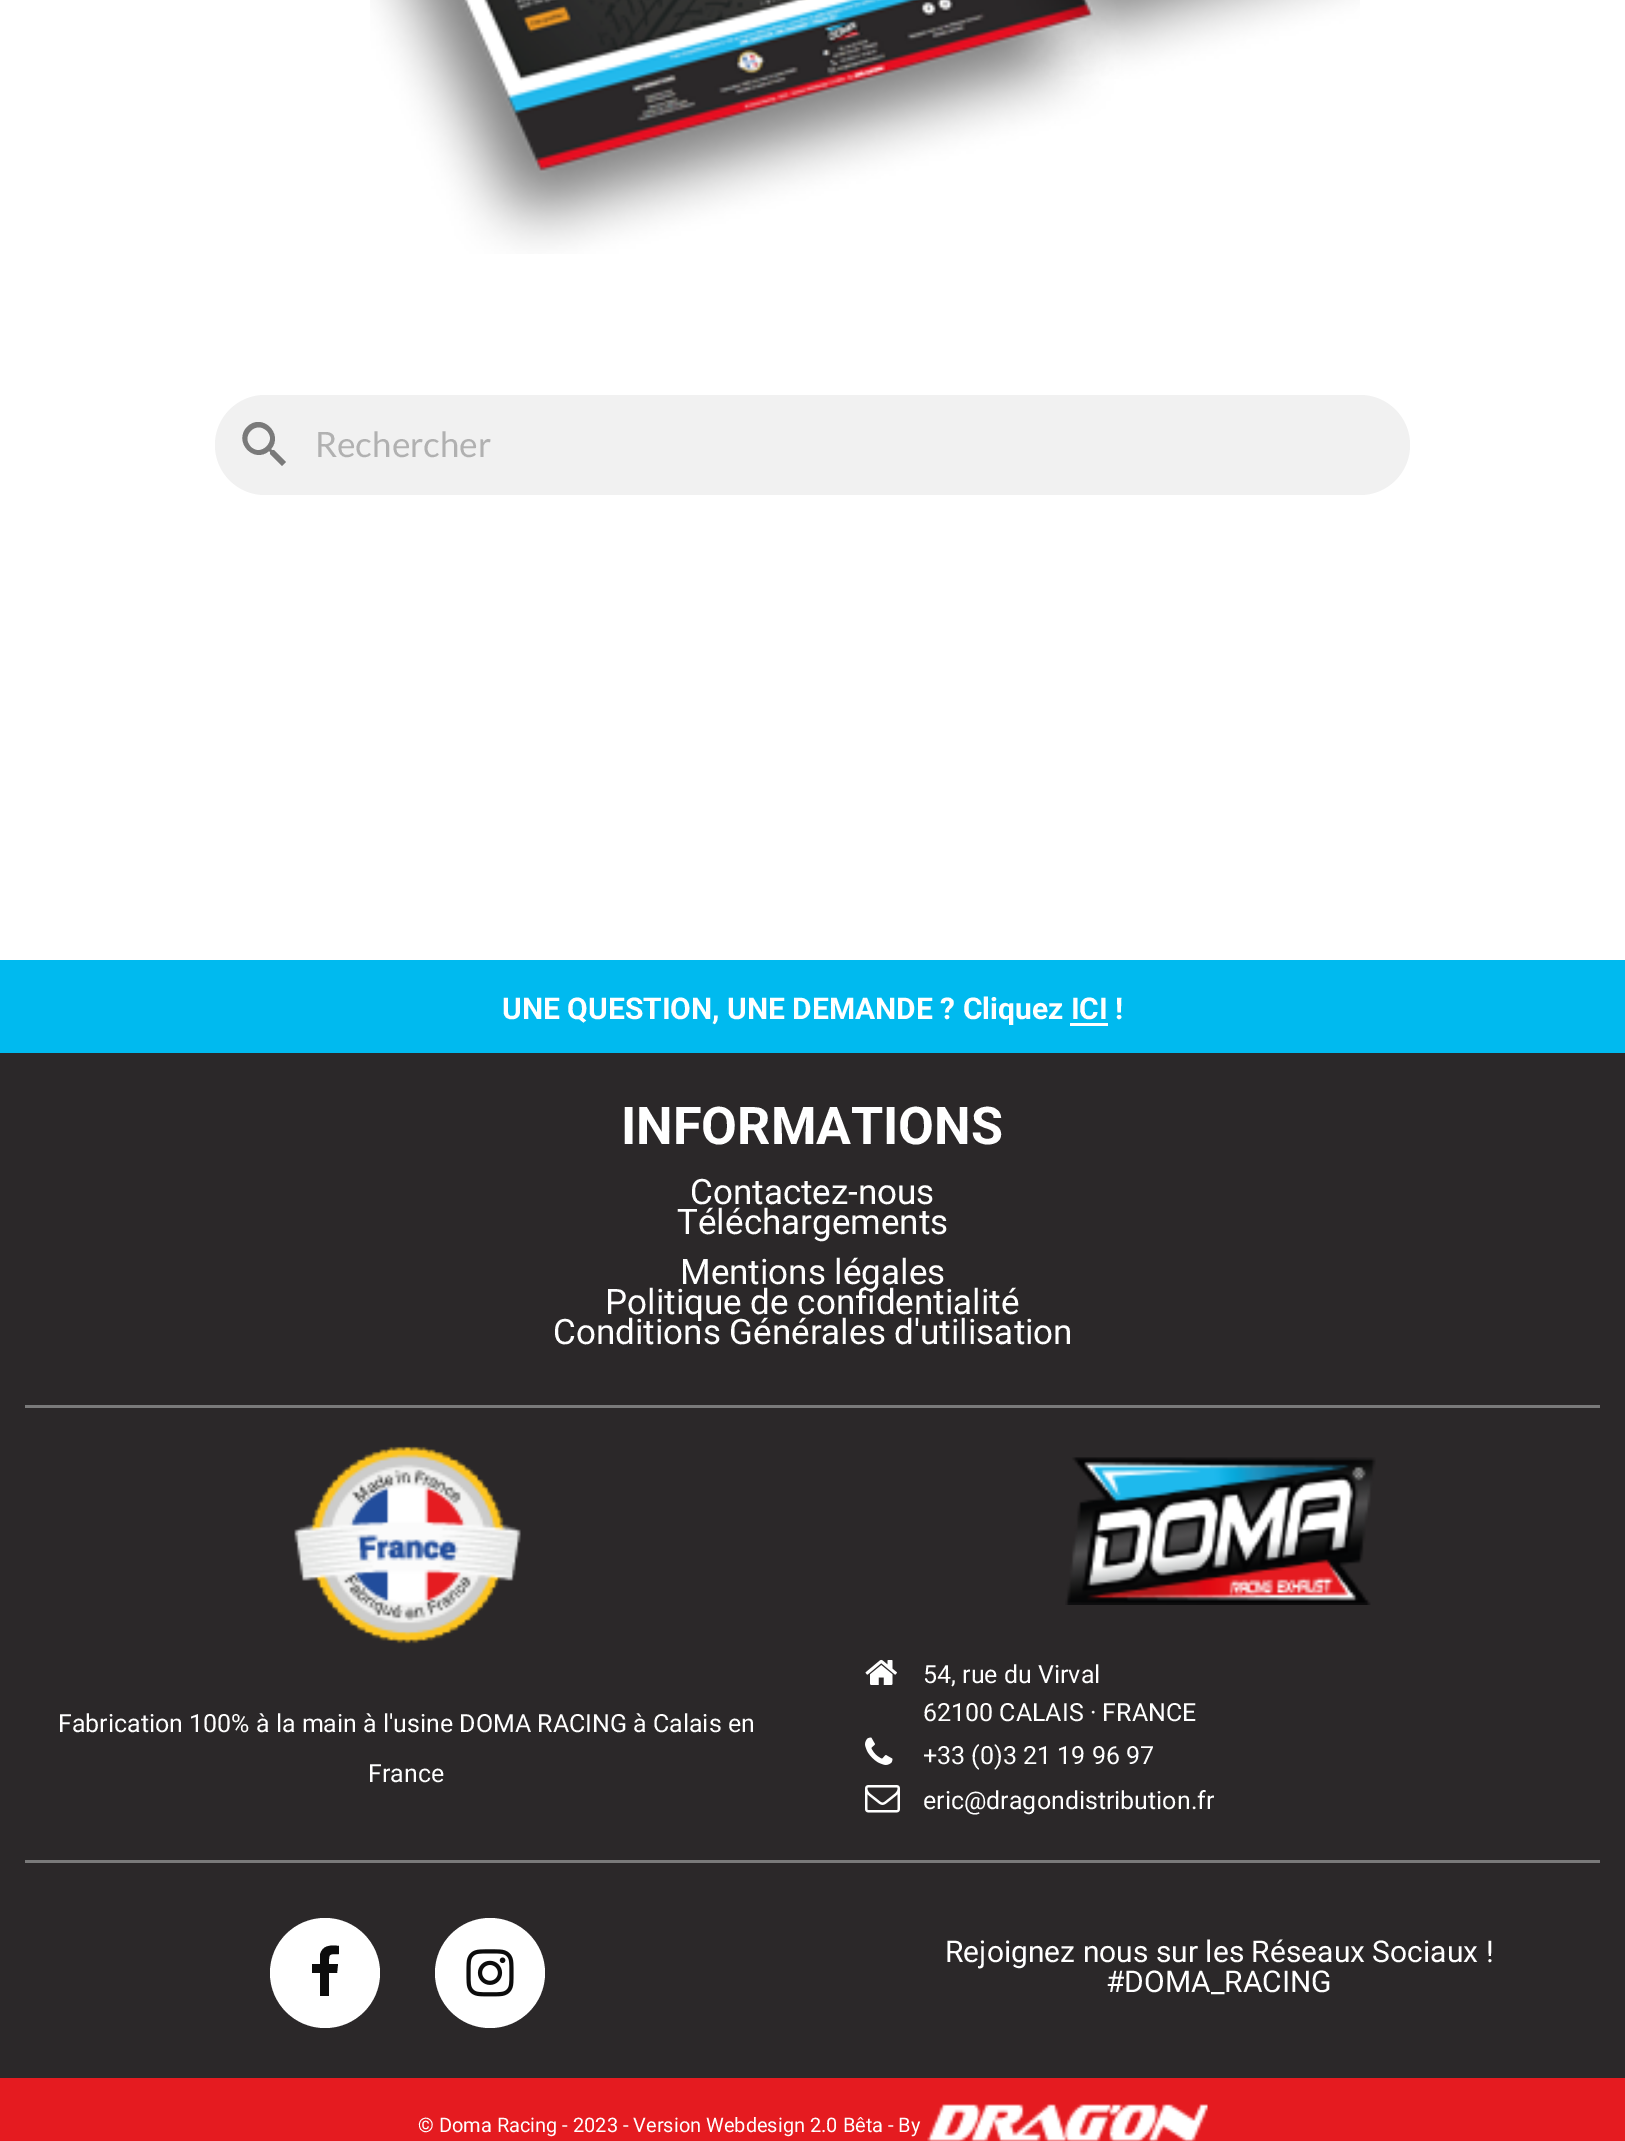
%!PS
<< /PageSize [1625 2141] >> setpagedevice
/rgb { 3 { 255 div 3 1 roll } repeat setrgbcolor } def
/font { [ exch dup neg 0 0 3 -1 roll 0 0 ] selectfont } def
/text { moveto show } def
/circle { newpath 0 360 arc closepath } def
/roundrect { 5 dict begin { /r /h /w /y /x } { exch def } forall
  x r add y moveto x w add y 2 copy h add r arct x w add y h add x 1 index r arct
  x y h add x y r arct x y 2 copy exch w add exch r arct closepath end } def
/picture { 5 dict begin { /h /w /y /x /name } { exch def } forall
  gsave x y translate w h scale
  w h 8 [w 0 0 h 0 0] name (r) file false 3 colorimage grestore end } def
0 2141 translate 1 -1 scale
4 setmiterlimit
255 255 255 rgb
0 0 1625 2141 rectfill
(img_01.rgb) 370 0 990 254 picture
241 241 241 rgb
215 395 1195 100 50 roundrect fill
122 122 122 rgb
251 447 moveto 10 10 26 -6 16 -16 rcurveto -11 -11 -27 5 -16 16 rcurveto closepath 274 450 moveto 12 12 rlineto -4 4 rlineto -12 -12 rlineto 0 -2 rlineto -1 -1 rlineto -15 13 -36 -9 -22 -24 rcurveto 15 -15 37 7 24 22 rcurveto 1 1 rlineto closepath fill
43 40 41 rgb
0 1053 1625 1025 rectfill
0 186 239 rgb
0 960 1625 93 rectfill
255 255 255 rgb
1070 1023 38 3 rectfill
122 122 122 rgb
25 1405 1575 3 rectfill
(img_02.rgb) 294 1446 227 198 picture
(img_03.rgb) 1065 1457 311 148 picture
(img_04.rgb) 865 1659 32 26 picture
(img_05.rgb) 865 1737 28 28 picture
(img_06.rgb) 865 1785 35 28 picture
25 1860 1575 3 rectfill
255 255 255 rgb
325 1973 55 circle fill
12 12 12 rgb
339 1946 moveto -8 -1 -17 -1 -19 9 rcurveto 0 9 rlineto -8 0 rlineto 0 9 rlineto 8 0 rlineto 0 23 rlineto 9 0 rlineto 0 -23 rlineto 8 0 rlineto 1 -9 rlineto -9 0 rlineto 0 -10 -1 -10 10 -10 rcurveto closepath fill
255 255 255 rgb
490 1973 55 circle fill
(img_07.rgb) 466 1949 48 48 picture
229 27 32 rgb
0 2078 1625 63 rectfill
(img_08.rgb) 927 2104 281 37 picture
/Lato-Regular 35 font
177 177 177 rgb
(Rechercher) 315 457 text
/Roboto-Bold 30 font
255 255 255 rgb
(UNE QUESTION, UNE DEMANDE ? Cliquez ICI !) 502 1019 text
/Roboto-Bold 52 font
(INFORMATIONS) 621 1144 text
/Roboto-Regular 35 font
(Contactez-nous) 690 1204 text
(Téléchargements) 677 1234 text
(Mentions légales) 680 1284 text
(Politique de confidentialité) 605 1314 text
(Conditions Générales d'utilisation) 553 1344 text
/Roboto-Regular 25 font
(Fabrication 100% à la main à l'usine DOMA RACING à Calais en) 58 1732 text
(France) 368 1782 text
(54, rue du Virval) 923 1683 text
(62100 CALAIS · FRANCE) 923 1721 text
(+33 \(0\)3 21 19 96 97) 923 1764 text
(eric@dragondistribution.fr) 923 1809 text
/Roboto-Regular 30 font
(Rejoignez nous sur les Réseaux Sociaux !) 945 1962 text
(#DOMA_RACING) 1106 1992 text
/Roboto-Regular 20 font
(© Doma Racing - 2023 - Version Webdesign 2.0 Bêta - By) 418 2132 text
showpage
